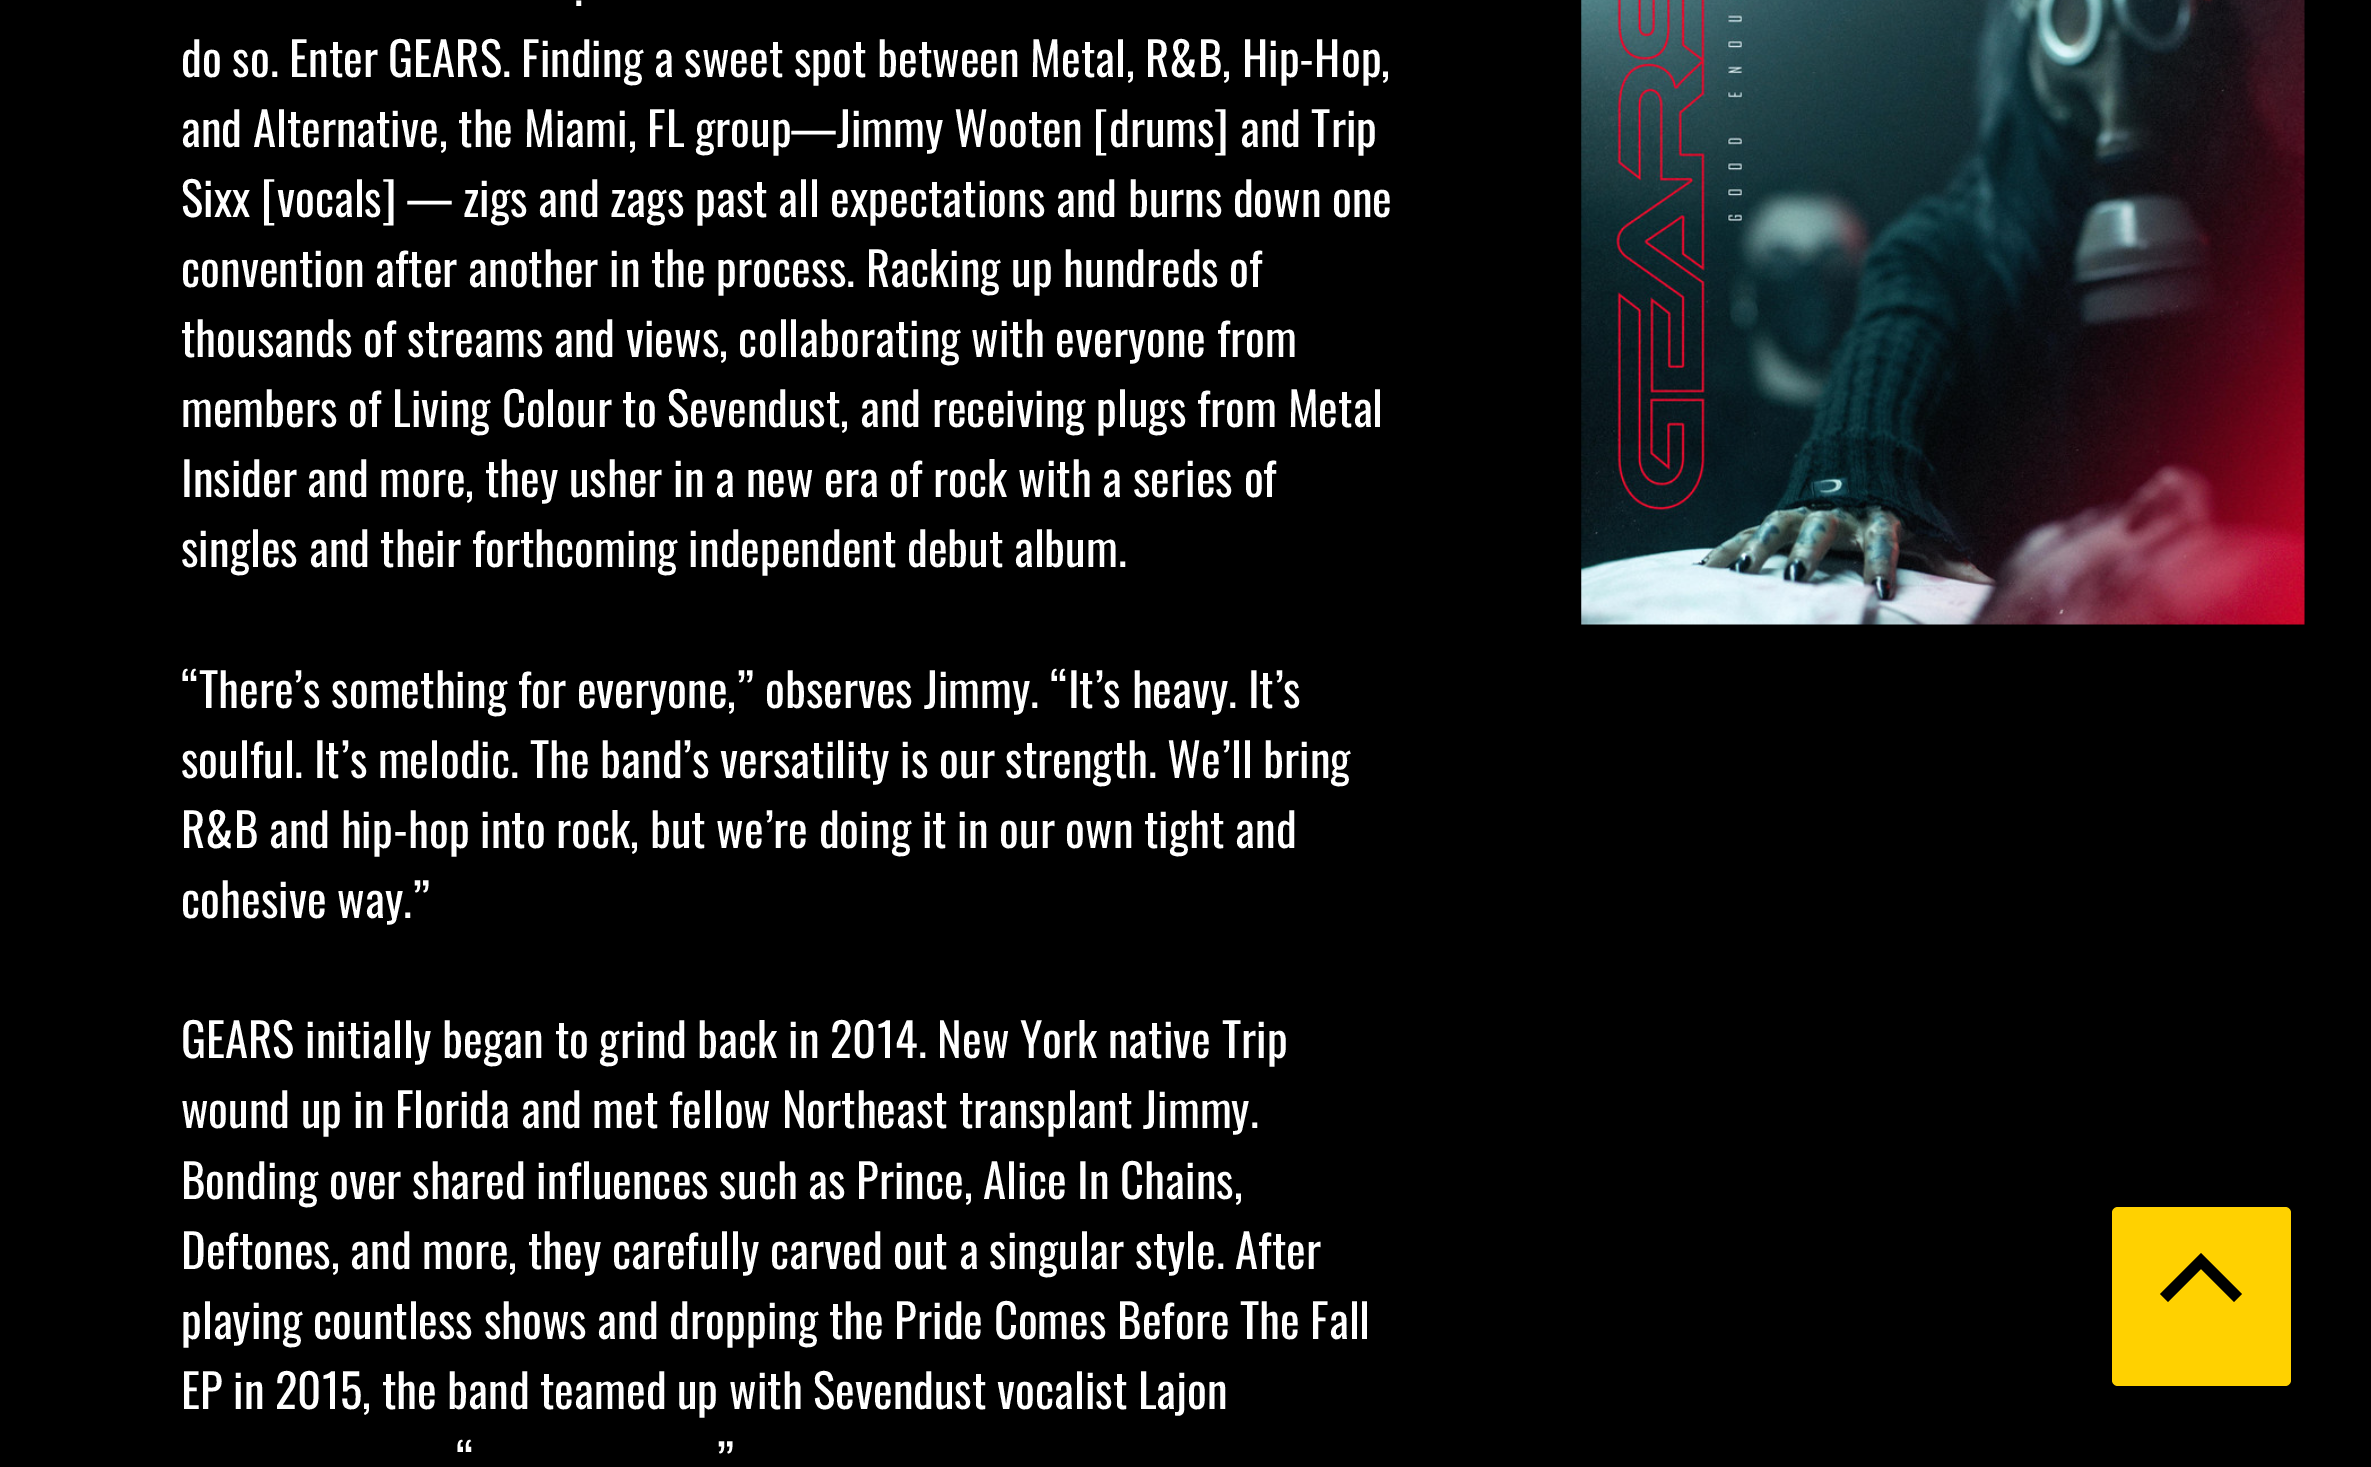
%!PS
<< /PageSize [2371 1467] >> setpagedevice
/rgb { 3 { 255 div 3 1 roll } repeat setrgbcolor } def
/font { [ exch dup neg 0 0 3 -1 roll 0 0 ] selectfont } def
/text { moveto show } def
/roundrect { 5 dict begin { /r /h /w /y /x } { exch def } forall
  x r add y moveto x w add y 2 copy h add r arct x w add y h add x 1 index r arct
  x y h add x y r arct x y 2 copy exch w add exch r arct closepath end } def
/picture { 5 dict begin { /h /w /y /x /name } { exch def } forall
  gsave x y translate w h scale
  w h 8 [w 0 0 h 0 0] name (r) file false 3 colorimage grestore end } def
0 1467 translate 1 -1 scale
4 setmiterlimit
0 0 0 rgb
0 0 2371 1467 rectfill
(img_01.rgb) 1581 0 724 625 picture
255 209 0 rgb
2112 1207 179 179 6 roundrect fill
0 0 0 rgb
2242 1294 moveto -41 -41 rlineto -41 41 rlineto 8 8 rlineto 33 -33 rlineto 33 33 rlineto closepath fill
/Oswald-Regular 46.75 font
255 255 255 rgb
(.) 574 6 text
(do so. Enter GEARS. Finding a sweet spot between Metal, R&B, Hip-Hop,) 181 77 text
(and Alternative, the Miami, FL group—Jimmy Wooten [drums] and Trip) 181 147 text
(Sixx [vocals] — zigs and zags past all expectations and burns down one) 181 217 text
(convention after another in the process. Racking up hundreds of) 181 287 text
(thousands of streams and views, collaborating with everyone from) 181 357 text
(members of Living Colour to Sevendust, and receiving plugs from Metal) 181 427 text
(Insider and more, they usher in a new era of rock with a series of) 181 497 text
(singles and their forthcoming independent debut album.) 181 567 text
(“There’s something for everyone,” observes Jimmy. “It’s heavy. It’s) 181 708 text
(soulful. It’s melodic. The band’s versatility is our strength. We’ll bring) 181 778 text
(R&B and hip-hop into rock, but we’re doing it in our own tight and) 181 848 text
(cohesive way.”) 181 918 text
(GEARS initially began to grind back in 2014. New York native Trip) 181 1058 text
(wound up in Florida and met fellow Northeast transplant Jimmy.) 181 1128 text
(Bonding over shared influences such as Prince, Alice In Chains,) 181 1199 text
(Deftones, and more, they carefully carved out a singular style. After) 181 1269 text
(playing countless shows and dropping the Pride Comes Before The Fall) 181 1339 text
(EP in 2015, the band teamed up with Sevendust vocalist Lajon) 181 1409 text
(“) 456 1479 text
(”) 716 1479 text
showpage
